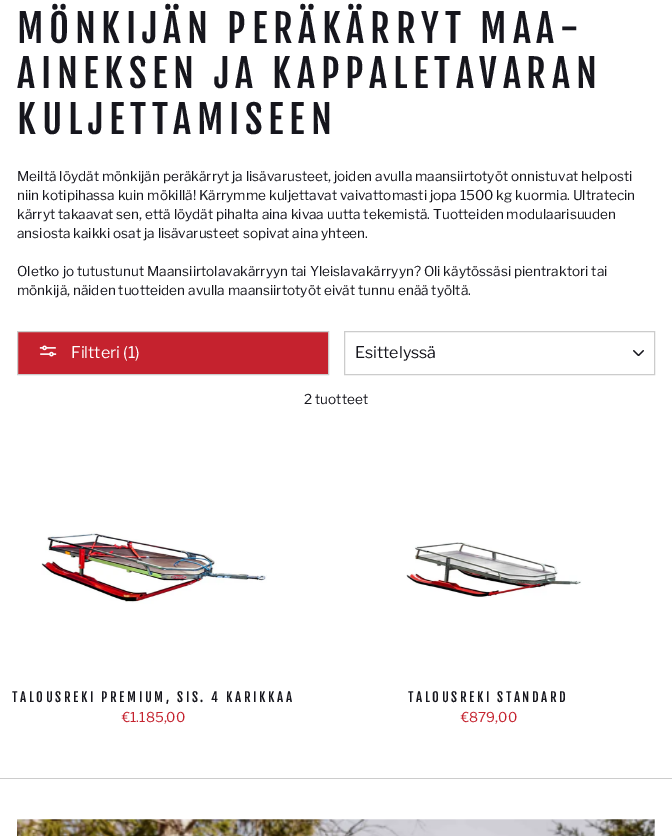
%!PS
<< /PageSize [672 836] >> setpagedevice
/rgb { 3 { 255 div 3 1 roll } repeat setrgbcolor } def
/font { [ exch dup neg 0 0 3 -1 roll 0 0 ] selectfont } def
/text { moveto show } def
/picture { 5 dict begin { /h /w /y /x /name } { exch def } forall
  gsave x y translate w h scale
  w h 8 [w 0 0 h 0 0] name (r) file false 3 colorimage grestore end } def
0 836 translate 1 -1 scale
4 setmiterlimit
255 255 255 rgb
0 0 672 836 rectfill
197 34 46 rgb
17.5 331.5 moveto 311 0 rlineto 0 43 rlineto -311 0 rlineto closepath gsave fill grestore
204 204 204 rgb
stroke
(img_01.rgb) 39 345 18 12 picture
(img_02.rgb) 633 350 11 6 picture
344.5 331.5 310 43 rectstroke
(img_03.rgb) 41 530 226 74 picture
(img_04.rgb) 406 542 176 56 picture
0 778 672 1 rectfill
(img_05.rgb) 17 819 638 17 picture
/FjallaOne-Regular 38.25 font
22 22 29 rgb
17 43 moveto 5.75 0 (MÖNKIJÄN PERÄKÄRRYT MAA-) ashow
17 88 moveto 5.75 0 (AINEKSEN JA KAPPALETAVARAN) ashow
17 134 moveto 5.75 0 (KULJETTAMISEEN) ashow
/LibreFranklin-Regular 13.6 font
(Meiltä löydät mönkijän peräkärryt ja lisävarusteet, joiden avulla maansiirtotyöt onnistuvat helposti) 17 181 text
(niin kotipihassa kuin mökillä! Kärrymme kuljettavat vaivattomasti jopa 1500 kg kuormia. Ultratecin) 17 200 text
(kärryt takaavat sen, että löydät pihalta aina kivaa uutta tekemistä. Tuotteiden modulaarisuuden) 17 219 text
(ansiosta kaikki osat ja lisävarusteet sopivat aina yhteen.) 17 238 text
(Oletko jo tutustunut Maansiirtolavakärryyn tai Yleislavakärryyn? Oli käytössäsi pientraktori tai) 17 276 text
(mönkijä, näiden tuotteiden avulla maansiirtotyöt eivät tunnu enää työltä.) 17 295 text
/LibreFranklin-Regular 16 font
255 255 255 rgb
(Filtteri \(1\)) 71 358 text
22 22 29 rgb
(Esittelyssä) 355 358 text
/LibreFranklin-Regular 13.6 font
(2 tuotteet) 304 404 text
/FjallaOne-Regular 13 font
12 702 moveto 2.6 0 (TALOUSREKI PREMIUM, SIS. 4 KARIKKAA) ashow
/LibreFranklin-Regular 13.6 font
197 34 46 rgb
(€1.185,00) 122 722 text
/FjallaOne-Regular 13 font
22 22 29 rgb
408 702 moveto 2.6 0 (TALOUSREKI STANDARD) ashow
/LibreFranklin-Regular 13.6 font
197 34 46 rgb
(€879,00) 461 722 text
showpage
